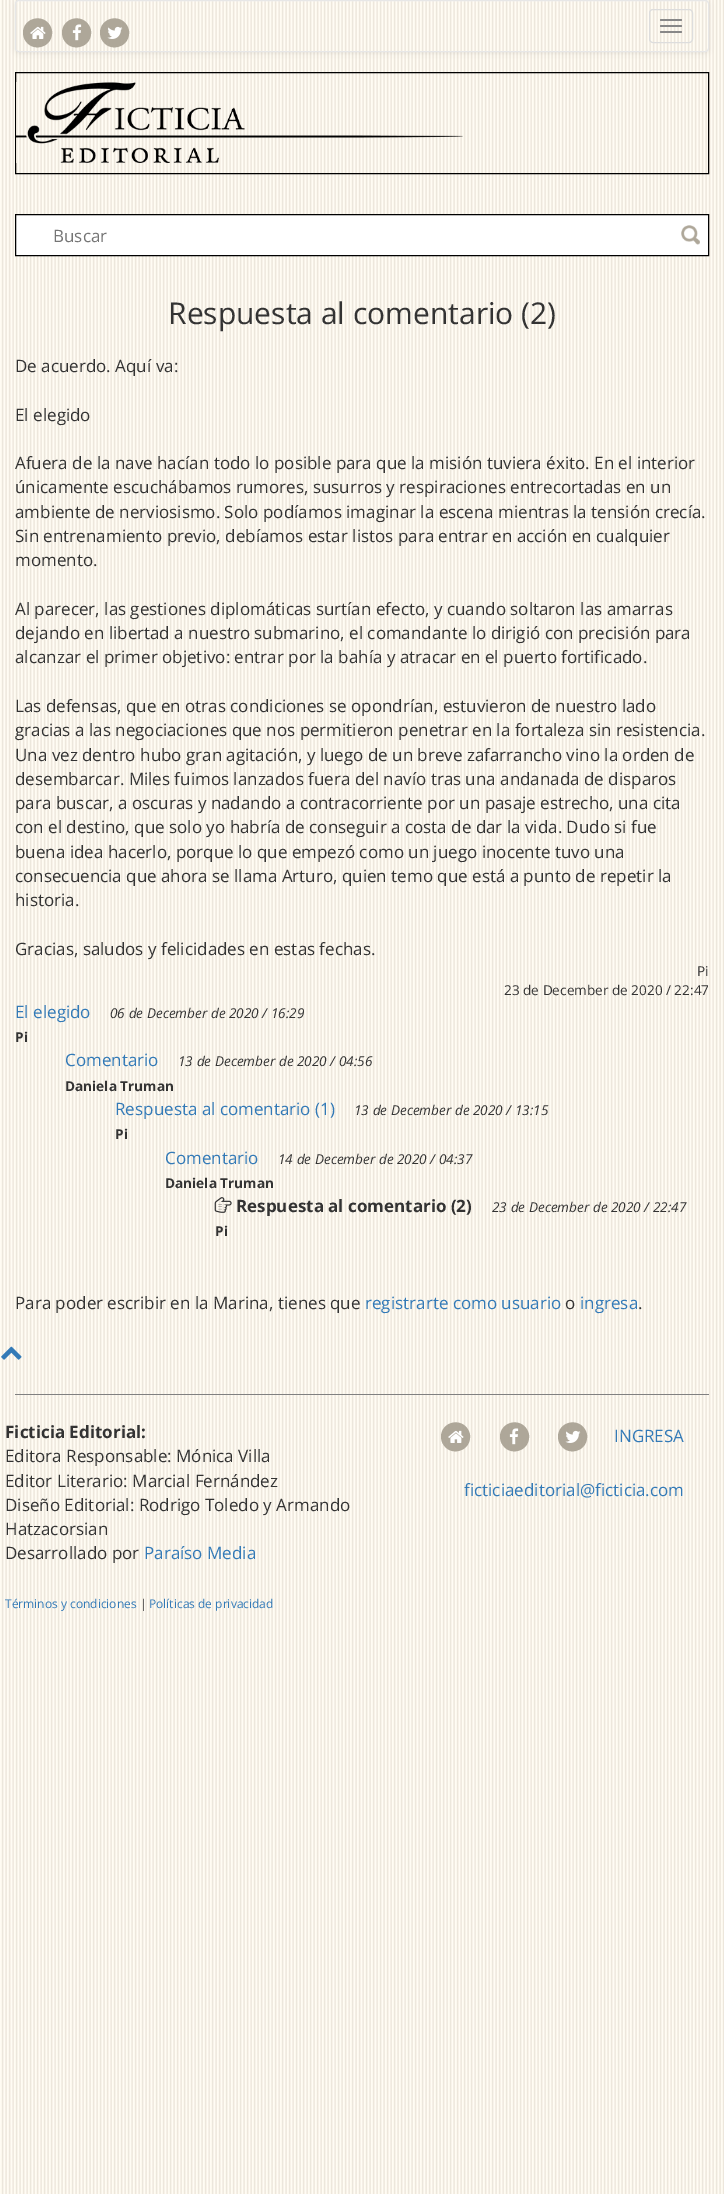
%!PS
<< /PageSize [724 2194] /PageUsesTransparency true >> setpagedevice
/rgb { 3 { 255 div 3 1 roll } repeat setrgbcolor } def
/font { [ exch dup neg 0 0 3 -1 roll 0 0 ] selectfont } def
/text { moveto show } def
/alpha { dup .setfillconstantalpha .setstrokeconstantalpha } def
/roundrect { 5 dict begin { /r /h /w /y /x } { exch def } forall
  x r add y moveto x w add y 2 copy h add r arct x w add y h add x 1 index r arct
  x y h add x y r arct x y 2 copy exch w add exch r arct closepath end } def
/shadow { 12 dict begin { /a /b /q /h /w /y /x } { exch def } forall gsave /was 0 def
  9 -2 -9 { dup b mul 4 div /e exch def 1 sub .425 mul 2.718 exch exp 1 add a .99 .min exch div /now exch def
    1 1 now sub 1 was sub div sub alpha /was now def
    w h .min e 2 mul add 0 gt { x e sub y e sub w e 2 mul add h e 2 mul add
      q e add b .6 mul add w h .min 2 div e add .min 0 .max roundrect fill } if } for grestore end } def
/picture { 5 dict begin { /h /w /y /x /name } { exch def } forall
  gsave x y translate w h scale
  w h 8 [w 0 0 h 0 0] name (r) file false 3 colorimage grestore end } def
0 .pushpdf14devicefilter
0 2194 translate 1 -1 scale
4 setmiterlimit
255 255 255 rgb
0 0 724 2194 rectfill
(img_01.rgb) 0 0 724 2194 picture
gsave
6 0 moveto 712 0 rlineto 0 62 rlineto -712 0 rlineto closepath 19 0 moveto 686 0 rlineto 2 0 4 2 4 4 rcurveto 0 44 rlineto 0 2 -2 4 -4 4 rcurveto -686 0 rlineto -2 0 -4 -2 -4 -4 rcurveto 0 -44 rlineto 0 -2 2 -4 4 -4 rcurveto closepath eoclip newpath
0 0 0 rgb
15 1 694 52 4 2.5 0.07 shadow
grestore
0.15 alpha
19 2 moveto 686 0 rlineto 2 0 3 1 3 3 rcurveto 0 -1 rlineto 0 -2 -1 -3 -3 -3 rcurveto -686 0 rlineto -2 0 -3 1 -3 3 rcurveto 0 1 rlineto 0 -2 1 -3 3 -3 rcurveto closepath fill
1 alpha
231 231 231 rgb
15.5 0.5 693 51 3.5 roundrect stroke
174 167 153 rgb
50 25.5 moveto 1.5 2.5 2.5 5.5 2 8.5 rcurveto -1 14 -20 18.5 -27 6 rcurveto -1.5 -2.5 -2 -5 -2 -8 rcurveto 1 -14.5 20 -18.5 27 -6.5 rcurveto closepath fill
(img_02.rgb) 30 26 16 13 picture
89 25.5 moveto 1.5 2.5 2.5 5.5 2 8.5 rcurveto -1 14 -20 18.5 -27 6 rcurveto -1.5 -2.5 -2 -5 -2 -8 rcurveto 1 -14.5 20 -18.5 27 -6.5 rcurveto closepath fill
(img_03.rgb) 72 24 10 17 picture
127 25.5 moveto 1.5 2.5 2.5 5.5 2 8.5 rcurveto -1 14 -20 18.5 -27 6 rcurveto -1.5 -2.5 -2 -5 -2 -8 rcurveto 1 -14.5 20 -18.5 27 -6.5 rcurveto closepath fill
(img_04.rgb) 107 26 16 13 picture
221 221 221 rgb
649.5 9.5 43 33 3.5 roundrect stroke
136 136 136 rgb
660 19 22 2 1 roundrect fill
660 25 22 2 1 roundrect fill
660 31 22 2 1 roundrect fill
0 0 0 rgb
15.5 72.5 693 101 rectstroke
(img_05.rgb) 16 82 447 81 picture
255 255 255 rgb
15.5 214.5 moveto 693 0 rlineto 0 41 rlineto -693 0 rlineto closepath gsave fill grestore
0 0 0 rgb
stroke
(img_06.rgb) 681 225 19 20 picture
(img_07.rgb) 214 1197 18 16 picture
(img_08.rgb) 1 1346 21 14 picture
128 128 128 rgb
15 1394 694 1 rectfill
174 167 153 rgb
468 1429.5 moveto 1.5 2.5 2.5 5.5 2 8.5 rcurveto -1 14 -20 18.5 -27 6 rcurveto -1.5 -2.5 -2 -5 -2 -8 rcurveto 1 -14.5 20 -18.5 27 -6.5 rcurveto closepath fill
(img_02.rgb) 448 1430 16 13 picture
527 1429.5 moveto 1.5 2.5 2.5 5.5 2 8.5 rcurveto -1 14 -20 18.5 -27 6 rcurveto -1.5 -2.5 -2 -5 -2 -8 rcurveto 1 -14.5 20 -18.5 27 -6.5 rcurveto closepath fill
(img_03.rgb) 509 1428 10 17 picture
585 1429.5 moveto 1.5 2.5 2.5 5.5 2 8.5 rcurveto -1 14 -20 18.5 -27 6 rcurveto -1.5 -2.5 -2 -5 -2 -8 rcurveto 1 -14.5 20 -18.5 27 -6.5 rcurveto closepath fill
(img_04.rgb) 565 1430 16 13 picture
/OpenSans-Regular 17 font
117 117 117 rgb
(Buscar) 53 242 text
/OpenSans-Regular 30 font
51 51 51 rgb
(Respuesta al comentario \(2\)) 168 324 text
/OpenSans-Regular 17 font
(De acuerdo. Aquí va:) 15 372 text
(El elegido) 15 421 text
(Afuera de la nave hacían todo lo posible para que la misión tuviera éxito. En el interior) 15 469 text
(únicamente escuchábamos rumores, susurros y respiraciones entrecortadas en un) 15 493 text
(ambiente de nerviosismo. Solo podíamos imaginar la escena mientras la tensión crecía.) 15 518 text
(Sin entrenamiento previo, debíamos estar listos para entrar en acción en cualquier) 15 542 text
(momento.) 15 566 text
(Al parecer, las gestiones diplomáticas surtían efecto, y cuando soltaron las amarras) 15 615 text
(dejando en libertad a nuestro submarino, el comandante lo dirigió con precisión para) 15 639 text
(alcanzar el primer objetivo: entrar por la bahía y atracar en el puerto fortificado.) 15 663 text
(Las defensas, que en otras condiciones se opondrían, estuvieron de nuestro lado) 15 712 text
(gracias a las negociaciones que nos permitieron penetrar en la fortaleza sin resistencia.) 15 736 text
(Una vez dentro hubo gran agitación, y luego de un breve zafarrancho vino la orden de) 15 761 text
(desembarcar. Miles fuimos lanzados fuera del navío tras una andanada de disparos) 15 785 text
(para buscar, a oscuras y nadando a contracorriente por un pasaje estrecho, una cita) 15 809 text
(con el destino, que solo yo habría de conseguir a costa de dar la vida. Dudo si fue) 15 833 text
(buena idea hacerlo, porque lo que empezó como un juego inocente tuvo una) 15 858 text
(consecuencia que ahora se llama Arturo, quien temo que está a punto de repetir la) 15 882 text
(historia.) 15 906 text
(Gracias, saludos y felicidades en estas fechas.) 15 955 text
/OpenSans-Regular 13.6 font
(Pi) 697 976 text
(23 de December de 2020 / 22:47) 504 995 text
/OpenSans-Regular 17 font
51 122 183 rgb
(El elegido) 15 1018 text
/OpenSans-Italic 13.6 font
51 51 51 rgb
(06 de December de 2020 / 16:29) 110 1018 text
/OpenSans-Bold 13.6 font
(Pi) 15 1042 text
/OpenSans-Regular 17 font
51 122 183 rgb
(Comentario) 65 1066 text
/OpenSans-Italic 13.6 font
51 51 51 rgb
(13 de December de 2020 / 04:56) 178 1066 text
/OpenSans-Bold 13.6 font
(Daniela Truman) 65 1091 text
/OpenSans-Regular 17 font
51 122 183 rgb
(Respuesta al comentario \(1\)) 115 1115 text
/OpenSans-Italic 13.6 font
51 51 51 rgb
(13 de December de 2020 / 13:15) 354 1115 text
/OpenSans-Bold 13.6 font
(Pi) 115 1139 text
/OpenSans-Regular 17 font
51 122 183 rgb
(Comentario) 165 1164 text
/OpenSans-Italic 13.6 font
51 51 51 rgb
(14 de December de 2020 / 04:37) 278 1164 text
/OpenSans-Bold 13.6 font
(Daniela Truman) 165 1188 text
/OpenSans-Bold 17 font
(Respuesta al comentario \(2\)) 236 1212 text
/OpenSans-Italic 13.6 font
(23 de December de 2020 / 22:47) 492 1212 text
/OpenSans-Bold 13.6 font
(Pi) 215 1236 text
/OpenSans-Regular 17 font
(Para poder escribir en la Marina, tienes que) 15 1309 text
51 122 183 rgb
(registrarte como usuario) 365 1309 text
51 51 51 rgb
(o) 565 1309 text
51 122 183 rgb
(ingresa) 580 1309 text
51 51 51 rgb
(.) 638 1309 text
/OpenSans-Bold 17 font
(Ficticia Editorial:) 5 1438 text
/OpenSans-Regular 17 font
(Editora Responsable: Mónica Villa) 5 1462 text
(Editor Literario: Marcial Fernández) 5 1487 text
(Diseño Editorial: Rodrigo Toledo y Armando) 5 1511 text
(Hatzacorsian) 5 1535 text
(Desarrollado por) 5 1559 text
51 122 183 rgb
(Paraíso Media) 144 1559 text
/OpenSans-Regular 12 font
(Términos y condiciones) 5 1608 text
51 51 51 rgb
(|) 140 1608 text
51 122 183 rgb
(Políticas de privacidad) 149 1608 text
/OpenSans-Regular 17 font
(INGRESA) 614 1442 text
(ficticiaeditorial@ficticia.com) 464 1496 text
.poppdf14devicefilter showpage
